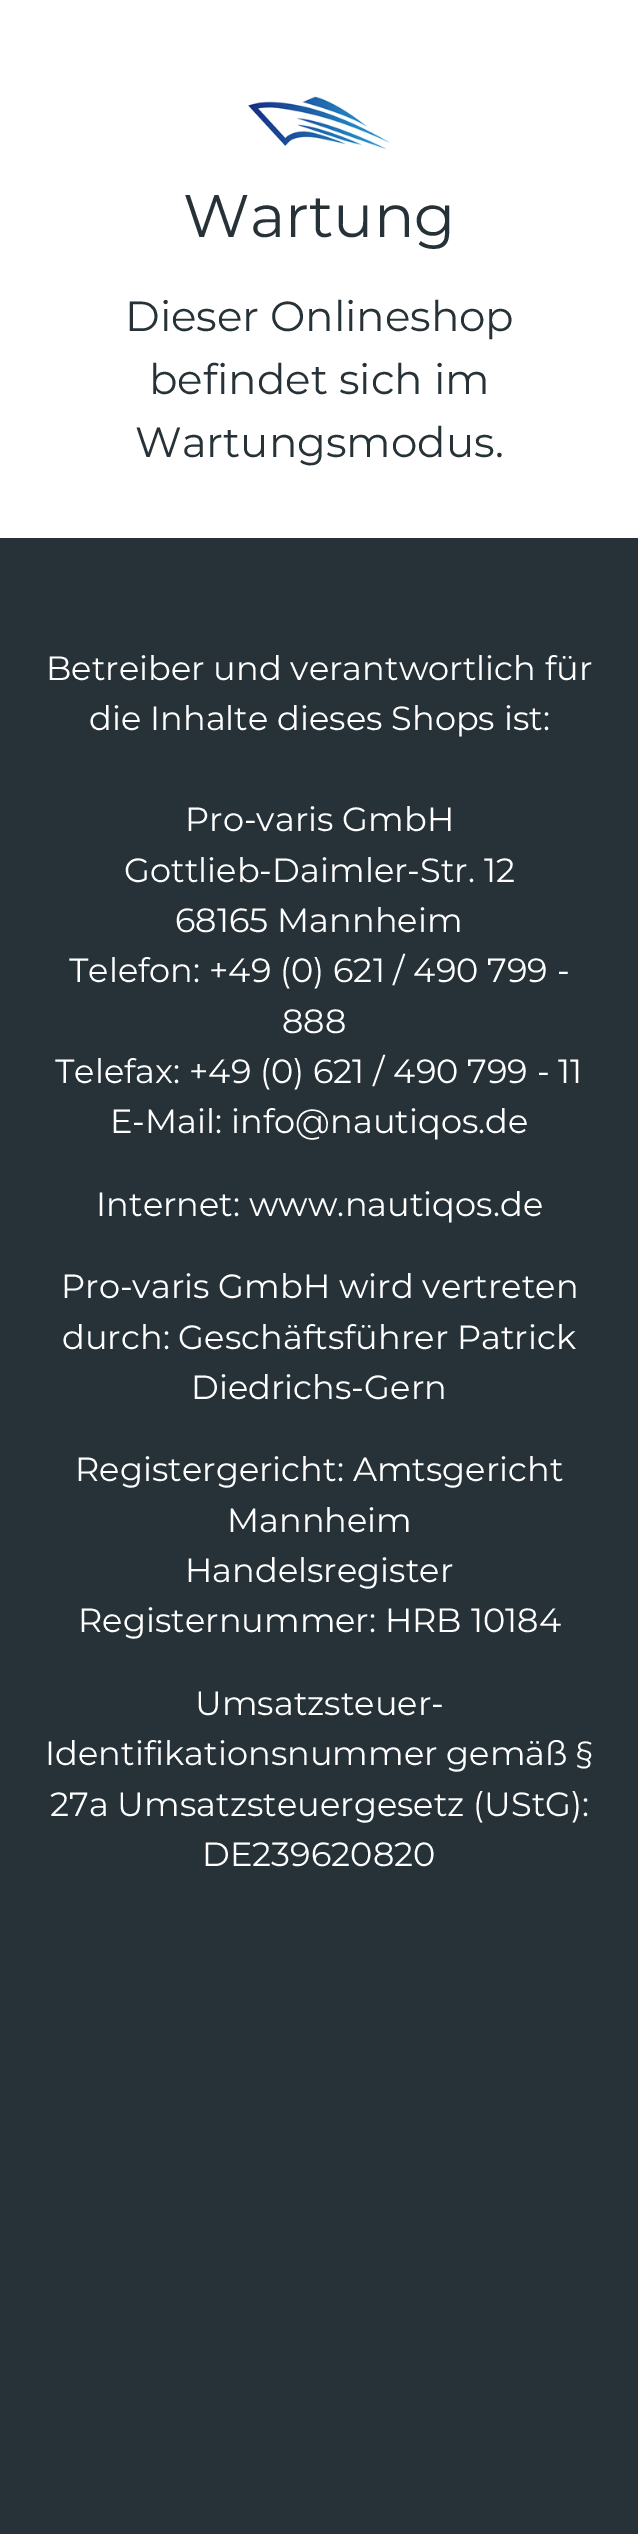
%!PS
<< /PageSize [638 2534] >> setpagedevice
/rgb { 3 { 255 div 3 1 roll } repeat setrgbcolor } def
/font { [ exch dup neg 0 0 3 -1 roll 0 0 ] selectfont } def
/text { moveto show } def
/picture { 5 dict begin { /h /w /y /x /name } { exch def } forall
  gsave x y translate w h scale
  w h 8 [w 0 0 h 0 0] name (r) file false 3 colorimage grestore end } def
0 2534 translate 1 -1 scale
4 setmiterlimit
255 255 255 rgb
0 0 638 2534 rectfill
(img_01.rgb) 248 96 142 54 picture
38 50 56 rgb
0 538 638 1996 rectfill
/Montserrat-Regular 60 font
(Wartung) 183 237 text
/Montserrat-Regular 42 font
(Dieser Onlineshop) 125 331 text
(befindet sich im) 149 394 text
(Wartungsmodus.) 135 457 text
/Montserrat-Regular 33.6 font
255 255 255 rgb
(Betreiber und verantwortlich für) 46 680 text
(die Inhalte dieses Shops ist:) 89 730 text
(Pro-varis GmbH) 185 831 text
(Gottlieb-Daimler-Str. 12) 124 882 text
(68165 Mannheim) 175 932 text
(Telefon: +49 \(0\) 621 / 490 799 -) 69 982 text
(888) 282 1033 text
(Telefax: +49 \(0\) 621 / 490 799 - 11) 55 1083 text
(E-Mail: info@nautiqos.de) 110 1133 text
(Internet: www.nautiqos.de) 96 1216 text
(Pro-varis GmbH wird vertreten) 61 1298 text
(durch: Geschäftsführer Patrick) 62 1349 text
(Diedrichs-Gern) 191 1399 text
(Registergericht: Amtsgericht) 75 1481 text
(Mannheim) 227 1532 text
(Handelsregister) 185 1582 text
(Registernummer: HRB 10184) 78 1632 text
(Umsatzsteuer-) 195 1715 text
(Identifikationsnummer gemäß §) 45 1765 text
(27a Umsatzsteuergesetz \(UStG\):) 50 1816 text
(DE239620820) 202 1866 text
showpage
